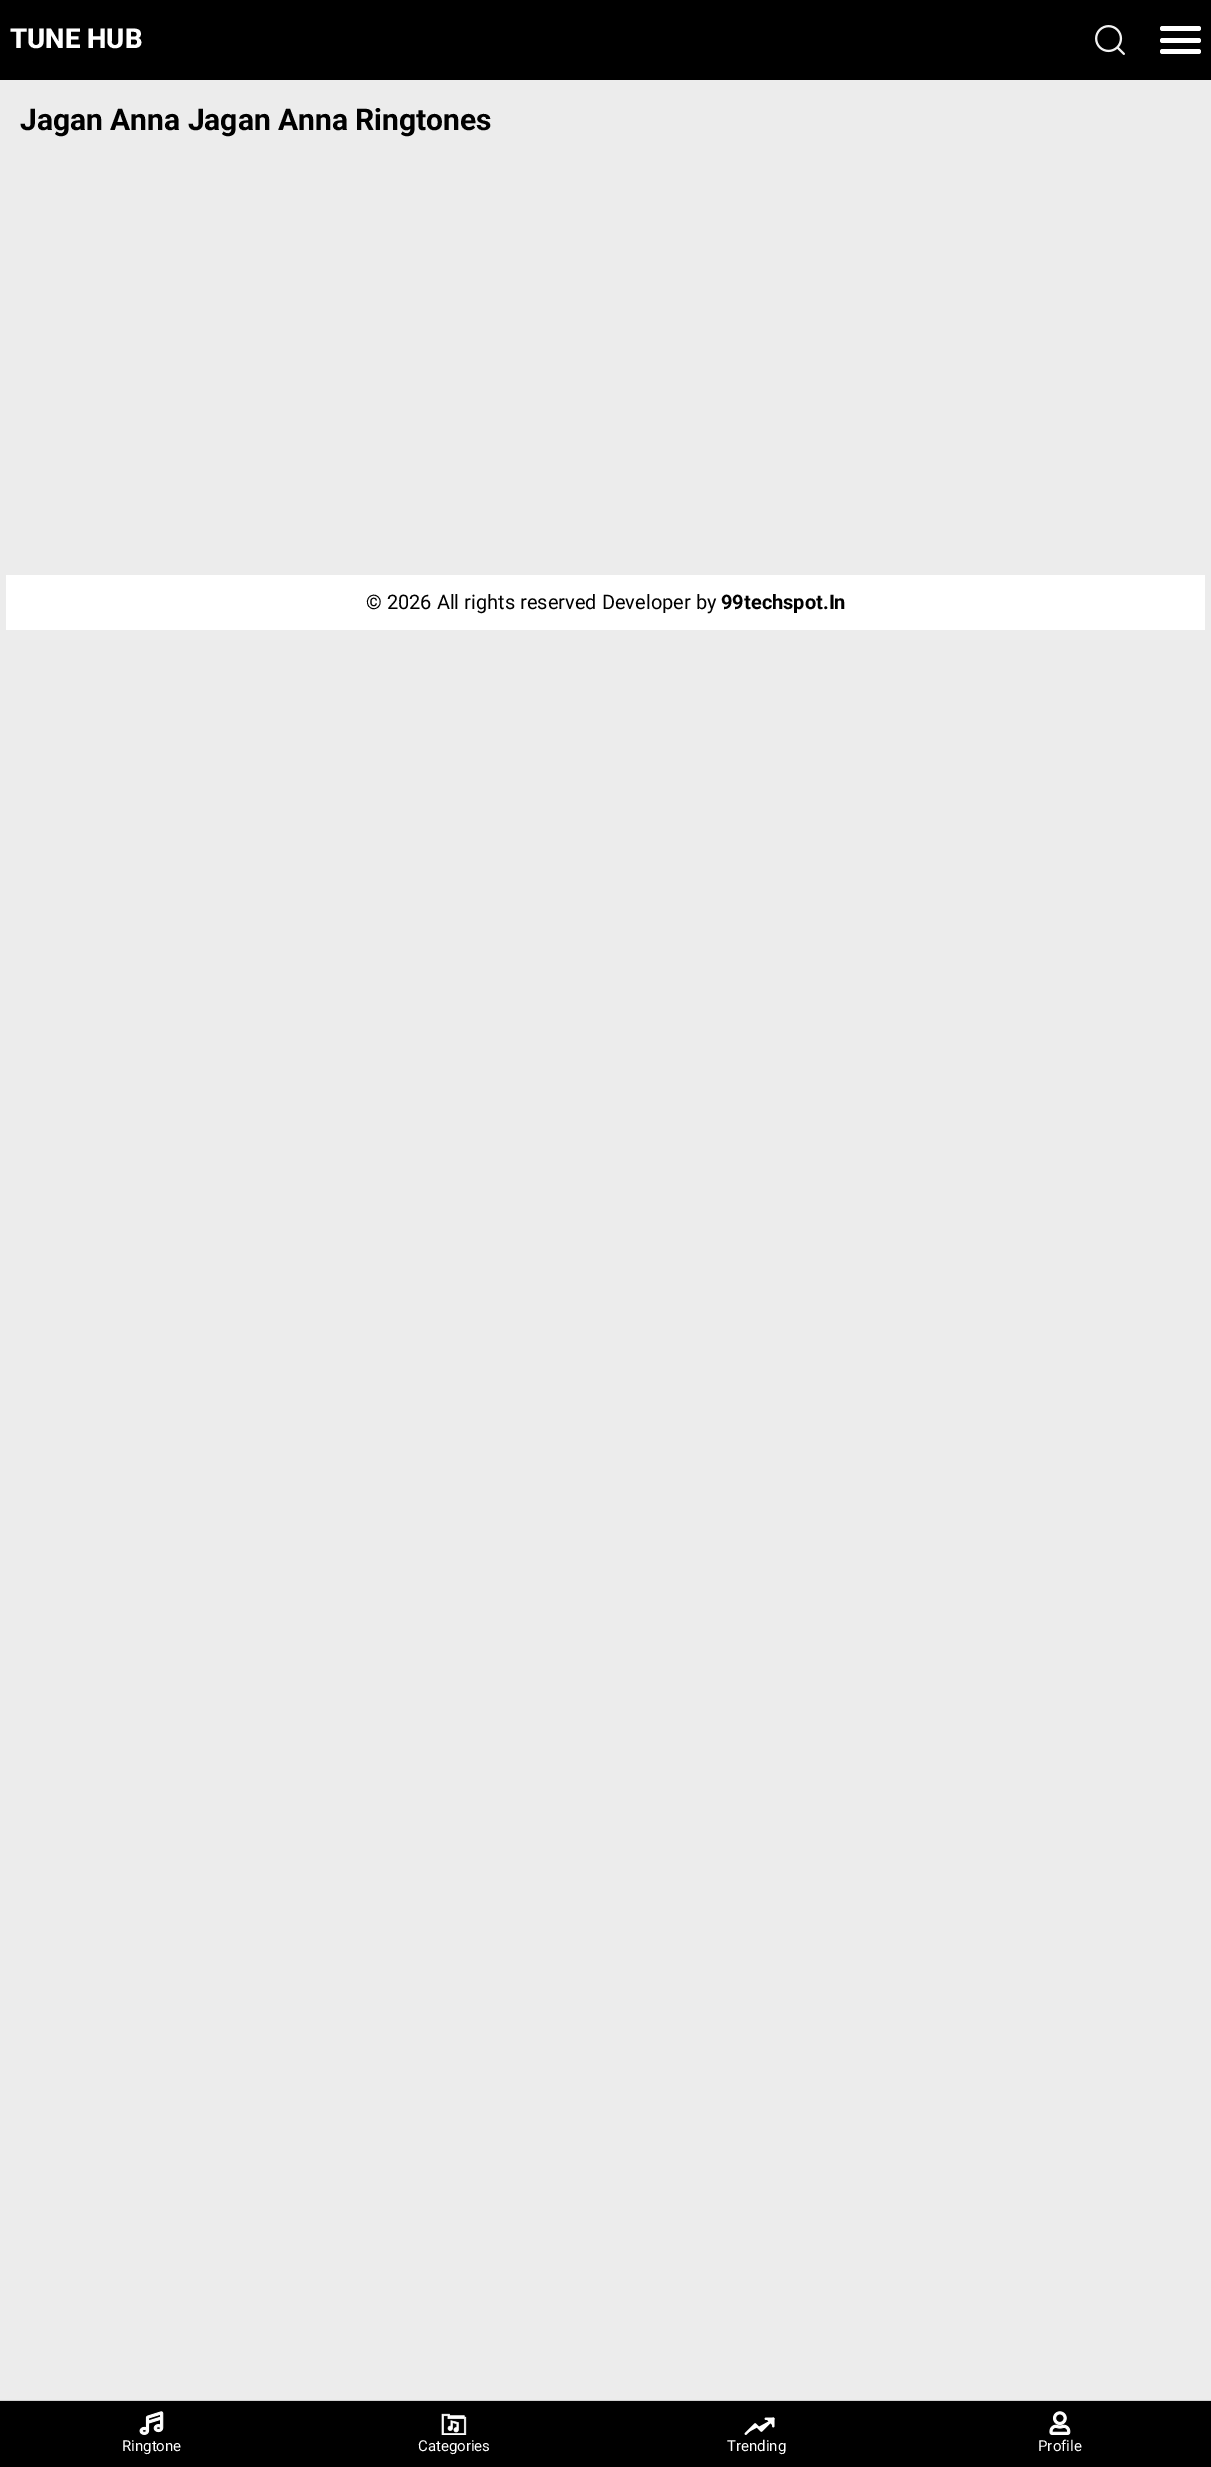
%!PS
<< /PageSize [1211 2467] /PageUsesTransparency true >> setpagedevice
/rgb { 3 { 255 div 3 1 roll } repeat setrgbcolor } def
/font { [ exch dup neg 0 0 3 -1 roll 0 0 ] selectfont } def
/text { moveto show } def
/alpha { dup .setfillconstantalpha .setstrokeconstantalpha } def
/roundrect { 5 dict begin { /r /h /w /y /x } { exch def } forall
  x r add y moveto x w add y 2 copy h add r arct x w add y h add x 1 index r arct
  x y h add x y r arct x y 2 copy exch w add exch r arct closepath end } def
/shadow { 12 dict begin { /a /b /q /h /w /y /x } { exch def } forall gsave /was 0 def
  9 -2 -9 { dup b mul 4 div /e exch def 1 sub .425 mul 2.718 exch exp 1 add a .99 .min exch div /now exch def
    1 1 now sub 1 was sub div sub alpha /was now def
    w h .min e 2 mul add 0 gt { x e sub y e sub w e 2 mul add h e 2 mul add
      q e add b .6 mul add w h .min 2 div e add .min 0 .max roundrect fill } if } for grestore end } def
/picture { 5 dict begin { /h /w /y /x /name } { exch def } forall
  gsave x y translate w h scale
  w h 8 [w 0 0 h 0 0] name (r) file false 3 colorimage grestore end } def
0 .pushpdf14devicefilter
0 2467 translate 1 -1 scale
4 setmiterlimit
236 236 236 rgb
0 0 1211 2467 rectfill
0 0 0 rgb
0 0 1211 80 rectfill
(img_01.rgb) 1095 25 30 30 picture
255 255 255 rgb
1160 26 41 5 2.5 roundrect fill
1160 38 41 5 2.5 roundrect fill
1160 49 41 5 2.5 roundrect fill
6 575 1199 55 rectfill
128 128 128 rgb
0 2401 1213 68 0 0.5 1 shadow
0 0 0 rgb
0 2401 1211 66 rectfill
(img_02.rgb) 139 2411 25 24 picture
(img_03.rgb) 441 2413 26 22 picture
(img_04.rgb) 744 2417 31 18 picture
(img_05.rgb) 1049 2411 22 24 picture
/Roboto-ExtraBold 27.5 font
255 255 255 rgb
(TUNE HUB) 10 48 text
/Roboto-Bold 30 font
0 0 0 rgb
(Jagan Anna Jagan Anna Ringtones) 20 130 text
/Roboto-Regular 20 font
(© 2026 All rights reserved Developer by) 366 609 text
/Roboto-Bold 20 font
(99techspot.In) 721 609 text
/Roboto-Regular 15 font
255 255 255 rgb
(Ringtone) 122 2451 text
(Categories) 418 2451 text
(Trending) 727 2451 text
(Profile) 1038 2451 text
.poppdf14devicefilter showpage
